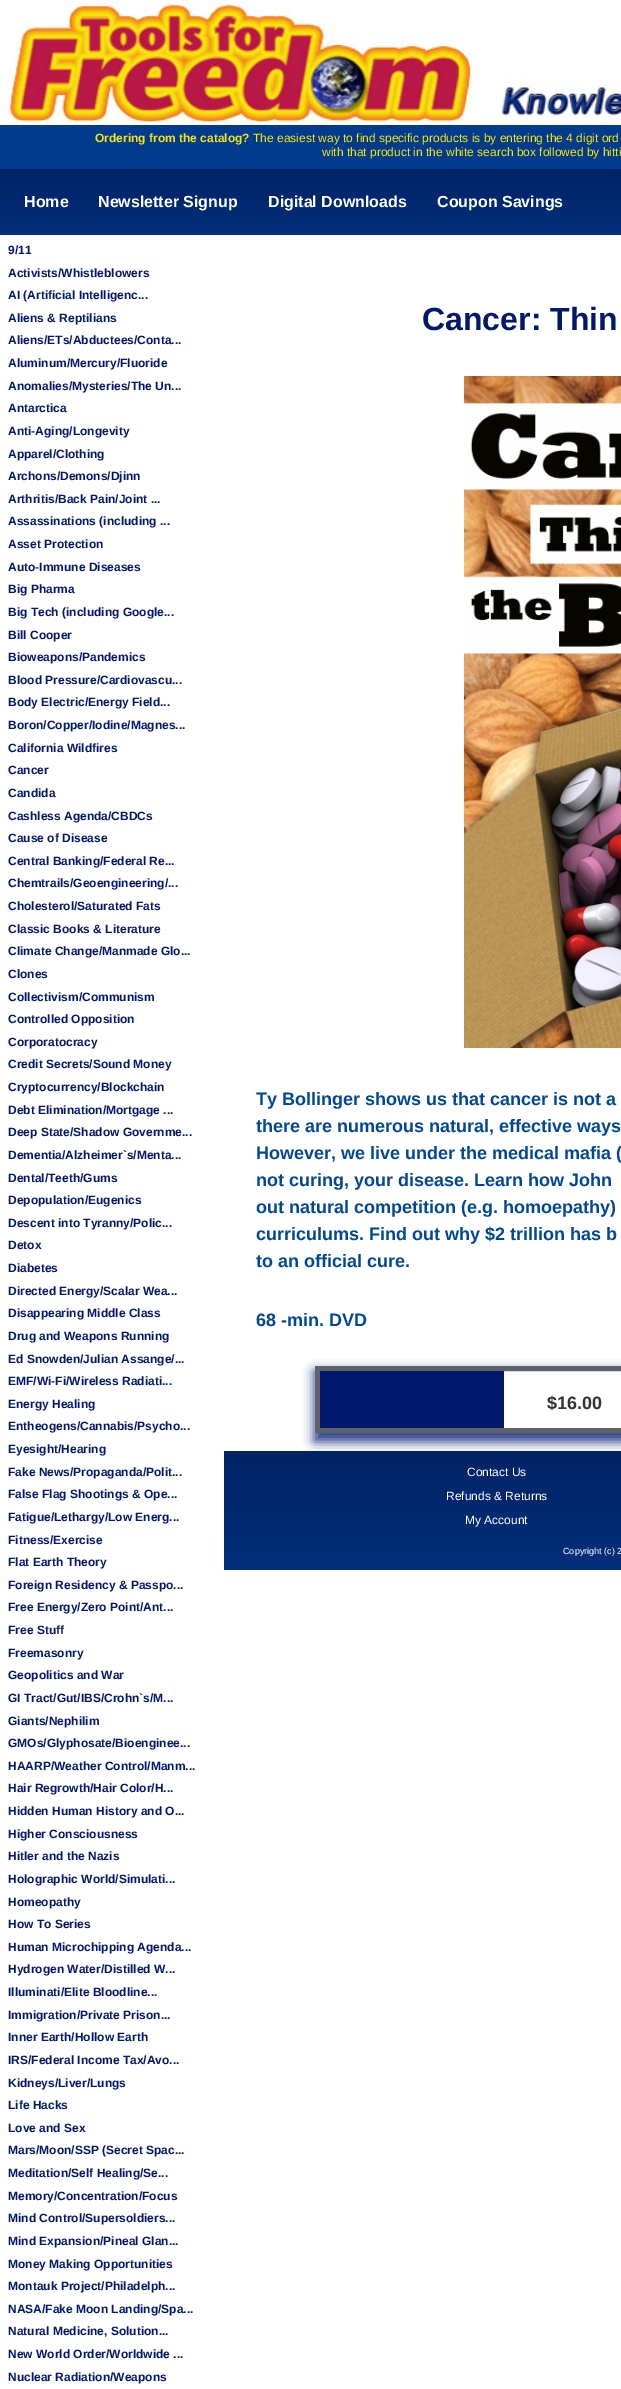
%!PS
<< /PageSize [621 2389] /PageUsesTransparency true >> setpagedevice
/rgb { 3 { 255 div 3 1 roll } repeat setrgbcolor } def
/font { [ exch dup neg 0 0 3 -1 roll 0 0 ] selectfont } def
/text { moveto show } def
/alpha { dup .setfillconstantalpha .setstrokeconstantalpha } def
/roundrect { 5 dict begin { /r /h /w /y /x } { exch def } forall
  x r add y moveto x w add y 2 copy h add r arct x w add y h add x 1 index r arct
  x y h add x y r arct x y 2 copy exch w add exch r arct closepath end } def
/shadow { 12 dict begin { /a /b /q /h /w /y /x } { exch def } forall gsave /was 0 def
  9 -2 -9 { dup b mul 4 div /e exch def 1 sub .425 mul 2.718 exch exp 1 add a .99 .min exch div /now exch def
    1 1 now sub 1 was sub div sub alpha /was now def
    w h .min e 2 mul add 0 gt { x e sub y e sub w e 2 mul add h e 2 mul add
      q e add b .6 mul add w h .min 2 div e add .min 0 .max roundrect fill } if } for grestore end } def
/picture { 5 dict begin { /h /w /y /x /name } { exch def } forall
  gsave x y translate w h scale
  w h 8 [w 0 0 h 0 0] name (r) file false 3 colorimage grestore end } def
0 .pushpdf14devicefilter
0 2389 translate 1 -1 scale
4 setmiterlimit
255 255 255 rgb
0 0 621 2389 rectfill
0 59 141 rgb
0 125 621 44 rectfill
(img_01.rgb) 0 0 621 125 picture
gsave 0 169 moveto 621 0 rlineto 0 66 rlineto -621 0 rlineto closepath clip newpath
<< /ShadingType 2 /ColorSpace /DeviceRGB /Coords [600 169 600 235] /Extend [true true] /Function << /FunctionType 2 /Domain [0 1] /C0 [0 0.137 0.4] /C1 [0 0.184 0.478] /N 1 >> >> shfill grestore
(img_02.rgb) 464 376 157 672 picture
gsave
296 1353 moveto 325 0 rlineto 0 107 rlineto -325 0 rlineto closepath 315 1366 moveto 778 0 rlineto 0 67 rlineto -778 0 rlineto closepath eoclip newpath
2 24 109 rgb
314 1371 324 71 0 5.5 0.83 shadow
grestore
93 98 107 rgb
5 setlinewidth
317.5 1368.5 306 62 rectstroke
2 24 109 rgb
320 1371 184 57 rectfill
gsave 224 1451 moveto 397 0 rlineto 0 119 rlineto -397 0 rlineto closepath clip newpath
<< /ShadingType 2 /ColorSpace /DeviceRGB /Coords [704 1451 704 1570] /Extend [true true] /Function << /FunctionType 2 /Domain [0 1] /C0 [0 0.137 0.4] /C1 [0 0.184 0.478] /N 1 >> >> shfill grestore
/LiberationSans-Bold 12 font
248 229 13 rgb
(Ordering from the catalog?) 95 142 text
/LiberationSans-Regular 12 font
(The easiest way to find specific products is by entering the 4 digit ord) 253 142 text
(with that product in the white search box followed by hitti) 322 156 text
/LiberationSans-Bold 16 font
255 255 255 rgb
(Home) 24 207 text
(Newsletter Signup) 98 207 text
(Digital Downloads) 268 207 text
(Coupon Savings) 437 207 text
/LiberationSans-Bold 12 font
2 24 109 rgb
(9/11) 8 254 text
(Activists/Whistleblowers) 8 277 text
(AI \(Artificial Intelligenc...) 8 299 text
(Aliens & Reptilians) 8 322 text
(Aliens/ETs/Abductees/Conta...) 8 344 text
(Aluminum/Mercury/Fluoride) 8 367 text
(Anomalies/Mysteries/The Un...) 8 390 text
(Antarctica) 8 412 text
(Anti-Aging/Longevity) 8 435 text
(Apparel/Clothing) 8 458 text
(Archons/Demons/Djinn) 8 480 text
(Arthritis/Back Pain/Joint ...) 8 503 text
(Assassinations \(including ...) 8 525 text
(Asset Protection) 8 548 text
(Auto-Immune Diseases) 8 571 text
(Big Pharma) 8 593 text
(Big Tech \(including Google...) 8 616 text
(Bill Cooper) 8 639 text
(Bioweapons/Pandemics) 8 661 text
(Blood Pressure/Cardiovascu...) 8 684 text
(Body Electric/Energy Field...) 8 706 text
(Boron/Copper/Iodine/Magnes...) 8 729 text
(California Wildfires) 8 752 text
(Cancer) 8 774 text
(Candida) 8 797 text
(Cashless Agenda/CBDCs) 8 820 text
(Cause of Disease) 8 842 text
(Central Banking/Federal Re...) 8 865 text
(Chemtrails/Geoengineering/...) 8 887 text
(Cholesterol/Saturated Fats) 8 910 text
(Classic Books & Literature) 8 933 text
(Climate Change/Manmade Glo...) 8 955 text
(Clones) 8 978 text
(Collectivism/Communism) 8 1001 text
(Controlled Opposition) 8 1023 text
(Corporatocracy) 8 1046 text
(Credit Secrets/Sound Money) 8 1068 text
(Cryptocurrency/Blockchain) 8 1091 text
(Debt Elimination/Mortgage ...) 8 1114 text
(Deep State/Shadow Governme...) 8 1136 text
(Dementia/Alzheimer`s/Menta...) 8 1159 text
(Dental/Teeth/Gums) 8 1182 text
(Depopulation/Eugenics) 8 1204 text
(Descent into Tyranny/Polic...) 8 1227 text
(Detox) 8 1249 text
(Diabetes) 8 1272 text
(Directed Energy/Scalar Wea...) 8 1295 text
(Disappearing Middle Class) 8 1317 text
(Drug and Weapons Running) 8 1340 text
(Ed Snowden/Julian Assange/...) 8 1363 text
(EMF/Wi-Fi/Wireless Radiati...) 8 1385 text
(Energy Healing) 8 1408 text
(Entheogens/Cannabis/Psycho...) 8 1430 text
(Eyesight/Hearing) 8 1453 text
(Fake News/Propaganda/Polit...) 8 1476 text
(False Flag Shootings & Ope...) 8 1498 text
(Fatigue/Lethargy/Low Energ...) 8 1521 text
(Fitness/Exercise) 8 1544 text
(Flat Earth Theory) 8 1566 text
(Foreign Residency & Passpo...) 8 1589 text
(Free Energy/Zero Point/Ant...) 8 1611 text
(Free Stuff) 8 1634 text
(Freemasonry) 8 1657 text
(Geopolitics and War) 8 1679 text
(GI Tract/Gut/IBS/Crohn`s/M...) 8 1702 text
(Giants/Nephilim) 8 1725 text
(GMOs/Glyphosate/Bioenginee...) 8 1747 text
(HAARP/Weather Control/Manm...) 8 1770 text
(Hair Regrowth/Hair Color/H...) 8 1792 text
(Hidden Human History and O...) 8 1815 text
(Higher Consciousness) 8 1838 text
(Hitler and the Nazis) 8 1860 text
(Holographic World/Simulati...) 8 1883 text
(Homeopathy) 8 1906 text
(How To Series) 8 1928 text
(Human Microchipping Agenda...) 8 1951 text
(Hydrogen Water/Distilled W...) 8 1973 text
(Illuminati/Elite Bloodline...) 8 1996 text
(Immigration/Private Prison...) 8 2019 text
(Inner Earth/Hollow Earth) 8 2041 text
(IRS/Federal Income Tax/Avo...) 8 2064 text
(Kidneys/Liver/Lungs) 8 2087 text
(Life Hacks) 8 2109 text
(Love and Sex) 8 2132 text
(Mars/Moon/SSP \(Secret Spac...) 8 2154 text
(Meditation/Self Healing/Se...) 8 2177 text
(Memory/Concentration/Focus) 8 2200 text
(Mind Control/Supersoldiers...) 8 2222 text
(Mind Expansion/Pineal Glan...) 8 2245 text
(Money Making Opportunities) 8 2268 text
(Montauk Project/Philadelph...) 8 2290 text
(NASA/Fake Moon Landing/Spa...) 8 2313 text
(Natural Medicine, Solution...) 8 2335 text
(New World Order/Worldwide ...) 8 2358 text
(Nuclear Radiation/Weapons) 8 2381 text
/LiberationSans-Bold 32 font
(Cancer: Thin) 422 330 text
/LiberationSans-Bold 18 font
0 72 150 rgb
(Ty Bollinger shows us that cancer is not a) 256 1105 text
(there are numerous natural, effective ways) 256 1132 text
(However, we live under the medical mafia \() 256 1159 text
(not curing, your disease. Learn how John) 256 1186 text
(out natural competition \(e.g. homoepathy\)) 256 1213 text
(curriculums. Find out why $2 trillion has b) 256 1240 text
(to an official cure.) 256 1267 text
(68 -min. DVD) 256 1326 text
51 51 51 rgb
($16.00) 547 1409 text
/LiberationSans-Regular 12 font
255 255 255 rgb
(Contact Us) 467 1476 text
(Refunds & Returns) 446 1500 text
(My Account) 465 1524 text
/LiberationSans-Regular 9 font
(Copyright \(c\) 2) 563 1554 text
.poppdf14devicefilter showpage
